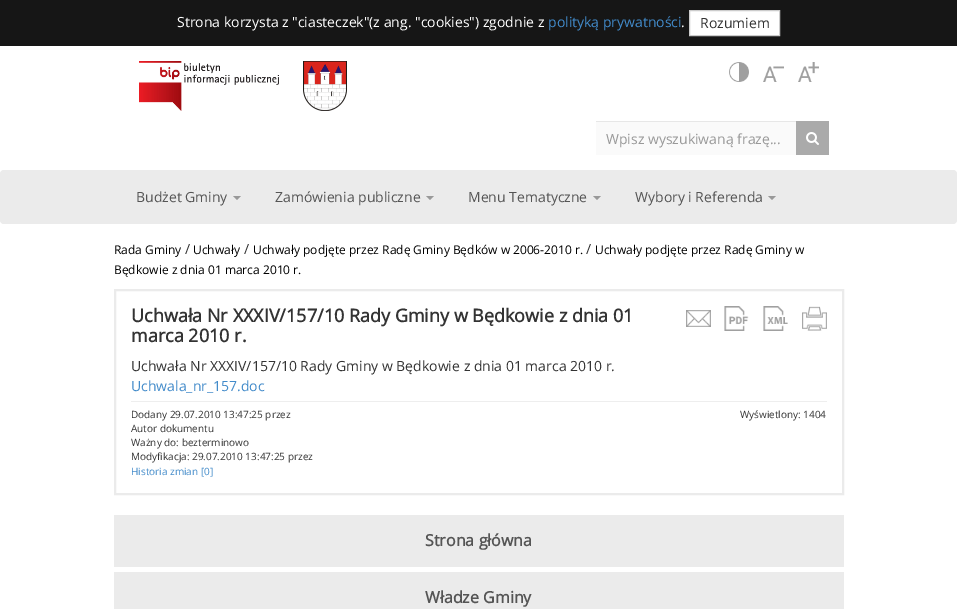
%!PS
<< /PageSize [957 609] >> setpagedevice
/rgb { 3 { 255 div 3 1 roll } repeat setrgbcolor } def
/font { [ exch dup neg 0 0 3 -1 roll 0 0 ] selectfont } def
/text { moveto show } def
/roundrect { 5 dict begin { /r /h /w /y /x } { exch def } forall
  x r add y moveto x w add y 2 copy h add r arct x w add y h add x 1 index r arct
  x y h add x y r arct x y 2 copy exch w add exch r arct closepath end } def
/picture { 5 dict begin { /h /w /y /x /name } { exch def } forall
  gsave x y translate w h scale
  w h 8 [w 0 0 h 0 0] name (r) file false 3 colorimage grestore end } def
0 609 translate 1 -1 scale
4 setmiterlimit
255 255 255 rgb
0 0 957 609 rectfill
22 22 22 rgb
0 0 957 46 rectfill
255 255 255 rgb
689.5 10.5 moveto 90 0 rlineto 0 25 rlineto -90 0 rlineto closepath gsave fill grestore
204 204 204 rgb
stroke
(img_01.rgb) 139 61 140 50 picture
(img_02.rgb) 303 61 44 50 picture
(img_03.rgb) 729 62 20 20 picture
(img_04.rgb) 763 66 21 16 picture
(img_05.rgb) 798 62 21 20 picture
250 250 250 rgb
596 122 200 33 rectfill
231 231 231 rgb
596 121 200 1 rectfill
170 170 170 rgb
796 121 33 34 rectfill
(img_06.rgb) 806 132 13 13 picture
235 235 235 rgb
0 170 957 54 4 roundrect fill
153 153 153 rgb
233 196 moveto 8 0 rlineto -4 4 rlineto closepath fill
426 196 moveto 8 0 rlineto -4 4 rlineto closepath fill
593 196 moveto 8 0 rlineto -4 4 rlineto closepath fill
768 196 moveto 8 0 rlineto -4 4 rlineto closepath fill
235 235 235 rgb
2 setlinewidth
115 290 728 204 rectstroke
(img_07.rgb) 686 310 25 17 picture
(img_08.rgb) 724 306 25 25 picture
(img_09.rgb) 763 306 25 25 picture
(img_10.rgb) 802 306 25 25 picture
238 238 238 rgb
131 401 696 1 rectfill
235 235 235 rgb
114 515 730 52 rectfill
114 572 730 37 rectfill
/OpenSans-Regular 14 font
255 255 255 rgb
(Strona korzysta z "ciasteczek"\(z ang. "cookies"\) zgodnie z) 177 27 text
66 139 202 rgb
(polityką prywatności) 548 27 text
255 255 255 rgb
(.) 681 27 text
51 51 51 rgb
(Rozumiem) 700 28 text
153 153 153 rgb
(Wpisz wyszukiwaną frazę...) 606 144 text
85 85 85 rgb
(Budżet Gminy) 136 202 text
(Zamówienia publiczne) 275 202 text
(Menu Tematyczne) 468 202 text
(Wybory i Referenda) 635 202 text
/OpenSans-Regular 12 font
0 0 0 rgb
(Rada Gminy) 114 254 text
/OpenSans-Regular 14 font
51 51 51 rgb
(/) 185 254 text
/OpenSans-Regular 12 font
0 0 0 rgb
(Uchwały) 193 254 text
/OpenSans-Regular 14 font
51 51 51 rgb
(/) 244 254 text
/OpenSans-Regular 12 font
0 0 0 rgb
(Uchwały podjęte przez Radę Gminy Będków w 2006-2010 r.) 253 254 text
/OpenSans-Regular 14 font
51 51 51 rgb
(/) 586 254 text
/OpenSans-Regular 12 font
0 0 0 rgb
(Uchwały podjęte przez Radę Gminy w) 595 254 text
(Będkowie z dnia 01 marca 2010 r.) 114 274 text
/OpenSans-Bold 18 font
51 51 51 rgb
(Uchwała Nr XXXIV/157/10 Rady Gminy w Będkowie z dnia 01) 131 322 text
(marca 2010 r.) 131 342 text
/OpenSans-Regular 14 font
(Uchwała Nr XXXIV/157/10 Rady Gminy w Będkowie z dnia 01 marca 2010 r.) 131 371 text
66 139 202 rgb
(Uchwala_nr_157.doc) 131 391 text
/OpenSans-Regular 10 font
51 51 51 rgb
(Dodany 29.07.2010 13:47:25 przez) 131 418 text
(Wyświetlony: 1404) 740 418 text
(Autor dokumentu) 131 432 text
(Ważny do: bezterminowo) 131 446 text
(Modyfikacja: 29.07.2010 13:47:25 przez) 131 460 text
66 139 202 rgb
(Historia zmian [0]) 131 475 text
/OpenSans-Bold 16 font
85 85 85 rgb
(Strona główna) 425 546 text
(Władze Gminy) 425 603 text
showpage
